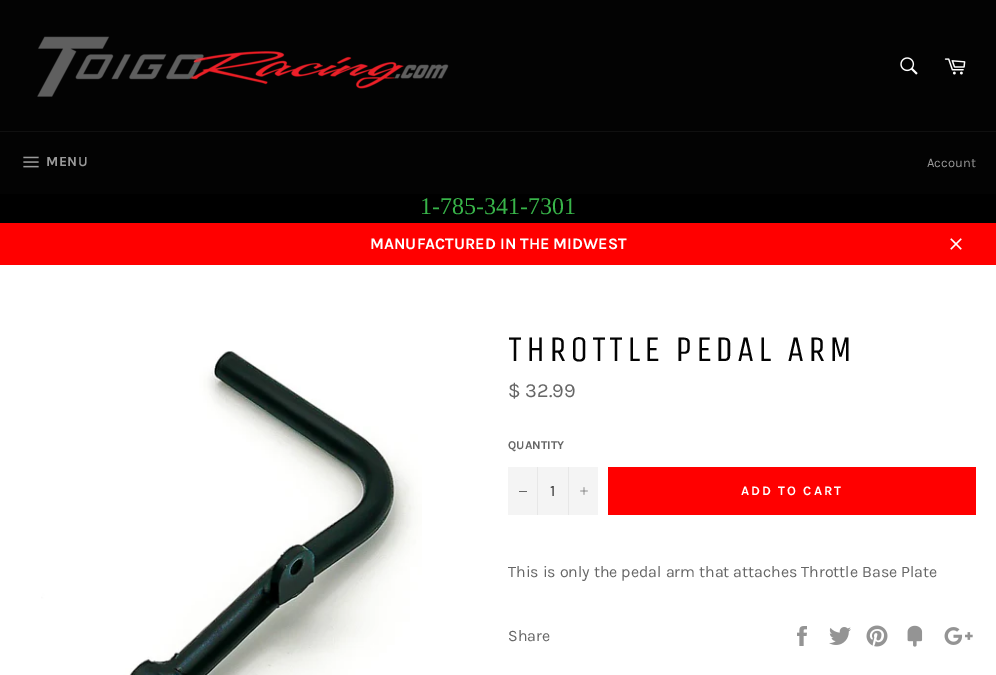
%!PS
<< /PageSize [996 675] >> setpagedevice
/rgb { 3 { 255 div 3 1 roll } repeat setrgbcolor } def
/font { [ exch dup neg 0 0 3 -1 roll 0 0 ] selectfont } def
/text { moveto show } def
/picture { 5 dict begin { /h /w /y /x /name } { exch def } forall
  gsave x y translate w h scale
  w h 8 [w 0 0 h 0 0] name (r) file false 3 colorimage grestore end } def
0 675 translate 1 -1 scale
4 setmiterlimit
255 255 255 rgb
0 0 996 675 rectfill
3 3 3 rgb
0 0 996 131 rectfill
(img_01.rgb) 37 36 412 61 picture
(img_02.rgb) 900 57 18 18 picture
(img_03.rgb) 944 58 22 17 picture
0 132 996 62 rectfill
16 16 16 rgb
0 131 996 1 rectfill
(img_04.rgb) 23 156 16 12 picture
0 0 0 rgb
0 194 996 29 rectfill
255 0 0 rgb
0 223 996 42 rectfill
(img_05.rgb) 950 238 12 12 picture
(img_06.rgb) 41 350 381 325 picture
244 244 244 rgb
508 467 90 48 rectfill
231 231 231 rgb
537 467 1 48 rectfill
102 102 102 rgb
519 491 8 1 rectfill
231 231 231 rgb
568 467 1 48 rectfill
(img_07.rgb) 580 487 8 8 picture
255 0 0 rgb
608 467 368 48 rectfill
(img_08.rgb) 797 626 10 20 picture
(img_09.rgb) 829 627 22 18 picture
(img_10.rgb) 866 625 22 22 picture
(img_11.rgb) 907 625 16 22 picture
(img_12.rgb) 944 627 29 18 picture
/Karla-Bold 14 font
154 154 154 rgb
46 166 moveto 0.5 0 (MENU) ashow
/Karla-Regular 13 font
(Account) 927 167 text
/LiberationSerif-Regular 24 font
56 180 73 rgb
(1-785-341-7301) 420 214 text
/Karla-Bold 16 font
255 255 255 rgb
(MANUFACTURED IN THE MIDWEST) 370 249 text
/UnicaOne-Regular 36 font
3 3 3 rgb
508 361 moveto 3.6 0 (THROTTLE PEDAL ARM) ashow
/Karla-Regular 20 font
102 102 102 rgb
($ 32.99) 508 397 text
/Karla-Bold 12 font
(QUANTITY) 508 449 text
/Karla-Regular 16 font
51 51 51 rgb
(1) 550 496 text
/Karla-Bold 13 font
255 255 255 rgb
741 495 moveto 2 0 (ADD TO CART) ashow
/Karla-Regular 16 font
102 102 102 rgb
(This is only the pedal arm that attaches Throttle Base Plate) 508 577 text
(Share) 508 641 text
showpage
